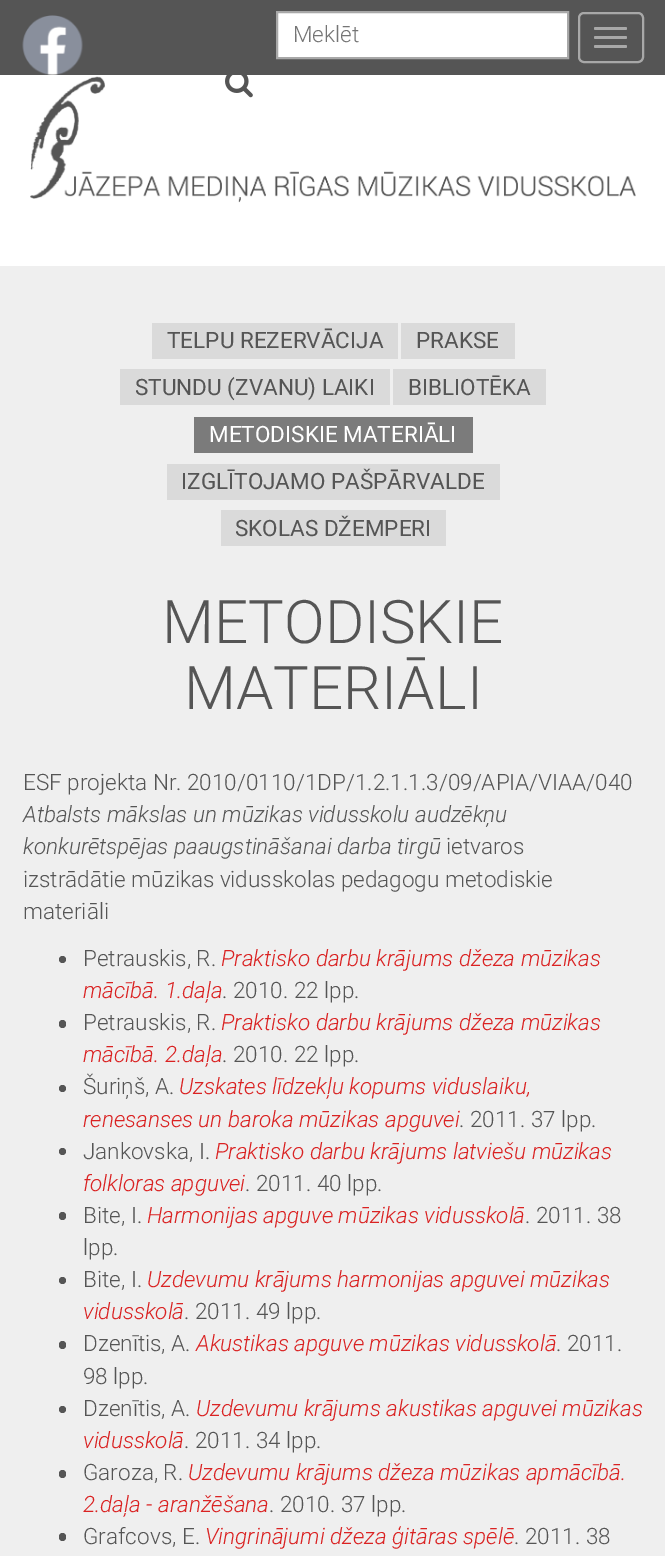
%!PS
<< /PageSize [665 1556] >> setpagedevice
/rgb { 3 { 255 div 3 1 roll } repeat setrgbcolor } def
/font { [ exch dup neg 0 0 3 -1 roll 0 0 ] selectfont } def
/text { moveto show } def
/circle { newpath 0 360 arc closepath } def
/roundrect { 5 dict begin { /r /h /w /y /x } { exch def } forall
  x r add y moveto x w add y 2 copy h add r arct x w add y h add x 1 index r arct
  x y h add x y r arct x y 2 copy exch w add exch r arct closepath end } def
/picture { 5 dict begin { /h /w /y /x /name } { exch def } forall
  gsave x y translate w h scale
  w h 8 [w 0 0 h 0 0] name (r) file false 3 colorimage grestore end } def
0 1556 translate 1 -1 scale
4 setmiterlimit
255 255 255 rgb
0 0 665 1556 rectfill
85 85 85 rgb
0 0 665 75 rectfill
(img_01.rgb) 22 15 61 60 picture
255 255 255 rgb
277 12 moveto 291 0 rlineto 0 46 rlineto -291 0 rlineto closepath gsave fill grestore
168 168 168 rgb
2 setlinewidth
stroke
(img_03.rgb) 30 76 606 127 picture
(img_02.rgb) 225 75 28 23 picture
239 239 239 rgb
0 266 665 1290 rectfill
168 168 168 rgb
579 13 64 49 5 roundrect stroke
594 27 33 3 1.5 roundrect fill
594 36 33 3 1.5 roundrect fill
594 45 33 3 1.5 roundrect fill
218 218 218 rgb
152 323 246 36 rectfill
401 323 114 36 rectfill
120 369 270 36 rectfill
393 369 153 36 rectfill
123 123 123 rgb
194 417 279 36 rectfill
218 218 218 rgb
167 464 333 36 rectfill
221 510 225 36 rectfill
85 85 85 rgb
62.5 959.5 3.5 circle fill
59 1020 7 8 3.5 roundrect fill
62.5 1088.5 3.5 circle fill
62.5 1151.5 3.5 circle fill
59 1212 7 8 3.5 roundrect fill
62.5 1280.5 3.5 circle fill
59 1341 7 8 3.5 roundrect fill
62.5 1409.5 3.5 circle fill
59 1470 7 8 3.5 roundrect fill
59 1533 7 8 3.5 roundrect fill
/Roboto-Light 22.5 font
117 117 117 rgb
(Meklēt) 293 42 text
/Roboto-Regular 22.5 font
85 85 85 rgb
(TELPU REZERVĀCIJA) 167 348 text
(PRAKSE) 416 348 text
(STUNDU \(ZVANU\) LAIKI) 135 395 text
(BIBLIOTĒKA) 408 395 text
255 255 255 rgb
(METODISKIE MATERIĀLI) 209 442 text
85 85 85 rgb
(IZGLĪTOJAMO PAŠPĀRVALDE) 181 489 text
(SKOLAS DŽEMPERI) 235 536 text
/Roboto-Light 60 font
(METODISKIE) 162 643 text
(MATERIĀLI) 184 709 text
/Roboto-Light 22.5 font
(ESF projekta Nr. 2010/0110/1DP/1.2.1.1.3/09/APIA/VIAA/040) 23 790 text
/Roboto-LightItalic 22.5 font
(Atbalsts mākslas un mūzikas vidusskolu audzēkņu) 23 822 text
(konkurētspējas paaugstināšanai darba tirgū) 23 854 text
/Roboto-Light 22.5 font
(ietvaros) 446 854 text
(izstrādātie mūzikas vidusskolas pedagogu metodiskie) 23 887 text
(materiāli) 23 919 text
(Petrauskis, R.) 83 966 text
/Roboto-LightItalic 22.5 font
218 34 34 rgb
(Praktisko darbu krājums džeza mūzikas) 221 966 text
(mācībā. 1.daļa) 83 998 text
/Roboto-Light 22.5 font
85 85 85 rgb
(. 2010. 22 lpp.) 222 998 text
(Petrauskis, R.) 83 1030 text
/Roboto-LightItalic 22.5 font
218 34 34 rgb
(Praktisko darbu krājums džeza mūzikas) 221 1030 text
(mācībā. 2.daļa) 83 1062 text
/Roboto-Light 22.5 font
85 85 85 rgb
(. 2010. 22 lpp.) 222 1062 text
(Šuriņš, A.) 83 1094 text
/Roboto-LightItalic 22.5 font
218 34 34 rgb
(Uzskates līdzekļu kopums viduslaiku,) 179 1094 text
(renesanses un baroka mūzikas apguvei) 83 1127 text
/Roboto-Light 22.5 font
85 85 85 rgb
(. 2011. 37 lpp.) 459 1127 text
(Jankovska, I.) 83 1159 text
/Roboto-LightItalic 22.5 font
218 34 34 rgb
(Praktisko darbu krājums latviešu mūzikas) 215 1159 text
(folkloras apguvei) 83 1191 text
/Roboto-Light 22.5 font
85 85 85 rgb
(. 2011. 40 lpp.) 245 1191 text
(Bite, I.) 83 1223 text
/Roboto-LightItalic 22.5 font
218 34 34 rgb
(Harmonijas apguve mūzikas vidusskolā) 147 1223 text
/Roboto-Light 22.5 font
85 85 85 rgb
(. 2011. 38) 525 1223 text
(lpp.) 83 1255 text
(Bite, I.) 83 1287 text
/Roboto-LightItalic 22.5 font
218 34 34 rgb
(Uzdevumu krājums harmonijas apguvei mūzikas) 147 1287 text
(vidusskolā) 83 1319 text
/Roboto-Light 22.5 font
85 85 85 rgb
(. 2011. 49 lpp.) 184 1319 text
(Dzenītis, A.) 83 1351 text
/Roboto-LightItalic 22.5 font
218 34 34 rgb
(Akustikas apguve mūzikas vidusskolā) 196 1351 text
/Roboto-Light 22.5 font
85 85 85 rgb
(. 2011.) 556 1351 text
(98 lpp.) 83 1384 text
(Dzenītis, A.) 83 1416 text
/Roboto-LightItalic 22.5 font
218 34 34 rgb
(Uzdevumu krājums akustikas apguvei mūzikas) 196 1416 text
(vidusskolā) 83 1448 text
/Roboto-Light 22.5 font
85 85 85 rgb
(. 2011. 34 lpp.) 184 1448 text
(Garoza, R.) 83 1480 text
/Roboto-LightItalic 22.5 font
218 34 34 rgb
(Uzdevumu krājums džeza mūzikas apmācībā.) 188 1480 text
(2.daļa - aranžēšana) 83 1512 text
/Roboto-Light 22.5 font
85 85 85 rgb
(. 2010. 37 lpp.) 269 1512 text
(Grafcovs, E.) 83 1544 text
/Roboto-LightItalic 22.5 font
218 34 34 rgb
(Vingrinājumi džeza ģitāras spēlē) 205 1544 text
/Roboto-Light 22.5 font
85 85 85 rgb
(. 2011. 38) 514 1544 text
showpage
